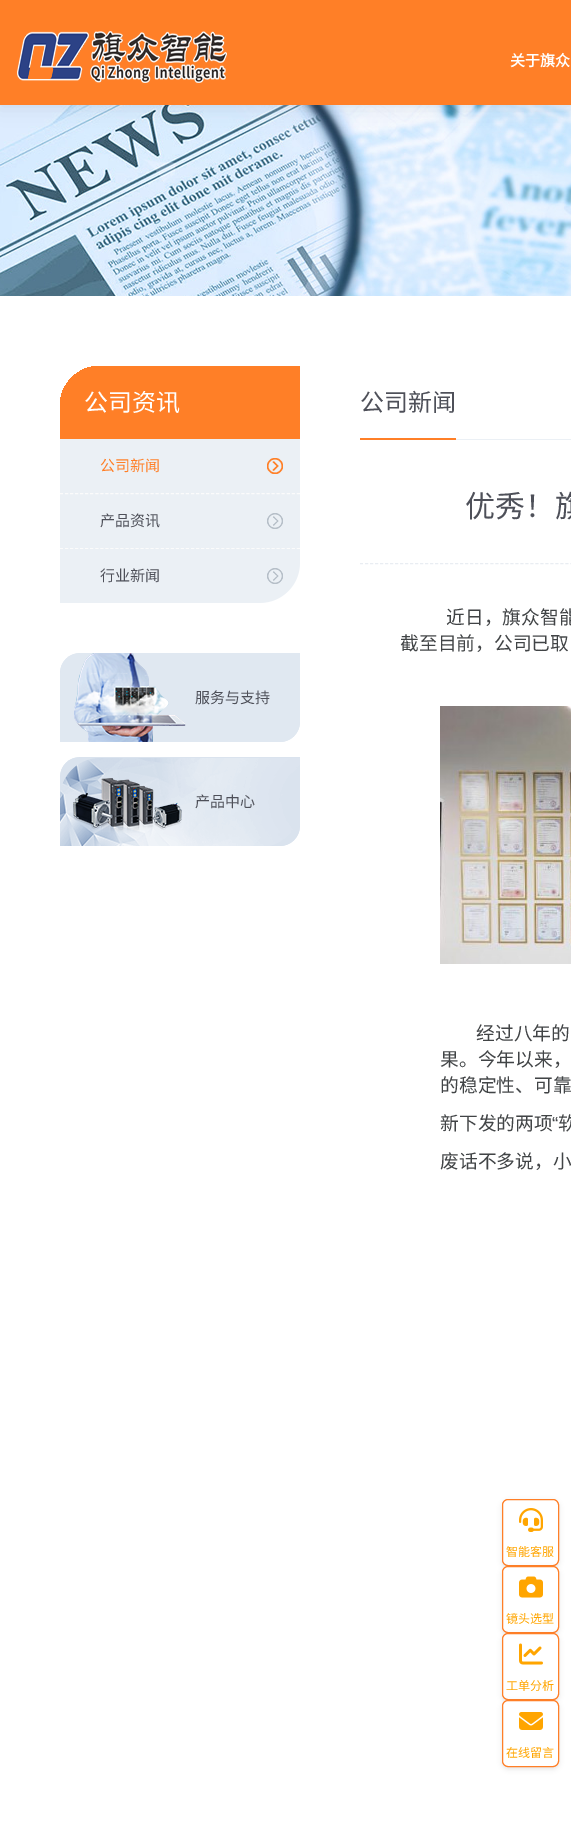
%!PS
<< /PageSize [571 1845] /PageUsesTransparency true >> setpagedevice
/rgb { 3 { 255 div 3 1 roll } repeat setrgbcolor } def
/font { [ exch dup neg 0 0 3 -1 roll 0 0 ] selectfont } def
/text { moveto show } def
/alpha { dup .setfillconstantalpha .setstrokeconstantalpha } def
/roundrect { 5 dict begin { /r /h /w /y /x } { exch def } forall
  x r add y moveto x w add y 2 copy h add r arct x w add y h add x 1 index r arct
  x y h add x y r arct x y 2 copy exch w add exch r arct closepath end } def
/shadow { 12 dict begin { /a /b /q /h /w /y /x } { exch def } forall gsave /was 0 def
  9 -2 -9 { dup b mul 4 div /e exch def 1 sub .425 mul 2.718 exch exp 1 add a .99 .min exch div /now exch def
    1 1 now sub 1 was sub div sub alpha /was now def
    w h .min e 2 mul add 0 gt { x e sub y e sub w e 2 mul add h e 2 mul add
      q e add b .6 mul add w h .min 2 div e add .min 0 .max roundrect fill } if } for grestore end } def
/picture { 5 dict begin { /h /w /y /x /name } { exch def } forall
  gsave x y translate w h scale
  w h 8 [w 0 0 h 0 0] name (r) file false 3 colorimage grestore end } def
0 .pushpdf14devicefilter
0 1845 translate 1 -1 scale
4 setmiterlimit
255 255 255 rgb
0 0 571 1845 rectfill
(img_02.rgb) 0 105 571 191 picture
0 0 0 rgb
0 0 571 105 0 10 0.1 shadow
255 127 39 rgb
0 0 571 105 rectfill
(img_01.rgb) 17 31 210 52 picture
(img_03.rgb) 60 366 240 73 picture
235 240 245 rgb
60 439 240 110 rectfill
251 251 251 rgb
[3 2.04] 0 setdash
60 493.5 moveto 240 0 rlineto stroke
(img_04.rgb) 267 458 16 16 picture
60 548.5 moveto 240 0 rlineto stroke
(img_05.rgb) 267 513 16 16 picture
(img_06.rgb) 60 549 240 54 picture
(img_05.rgb) 267 568 16 16 picture
224 232 241 rgb
80 653 moveto 220 0 rlineto 0 69 rlineto 0 11 -9 20 -20 20 rcurveto -220 0 rlineto 0 -69 rlineto 0 -11 9 -20 20 -20 rcurveto closepath fill
(img_07.rgb) 60 653 240 89 picture
80 757 moveto 220 0 rlineto 0 69 rlineto 0 11 -9 20 -20 20 rcurveto -220 0 rlineto 0 -69 rlineto 0 -11 9 -20 20 -20 rcurveto closepath fill
(img_08.rgb) 60 757 240 89 picture
235 240 245 rgb
456 439 115 1 rectfill
255 127 39 rgb
360 438 96 2 rectfill
233 237 242 rgb
[3 2.01] 0 setdash
360 563.5 moveto 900 0 rlineto stroke
(img_09.rgb) 440 706 131 258 picture
0 0 0 rgb
502 1501 57 67 6 2.5 0.1 shadow
255 255 255 rgb
502.5 1499.5 56 66 5.5 roundrect gsave fill grestore
255 127 39 rgb
[] 0 setdash
stroke
(img_10.rgb) 519 1508 24 24 picture
0 0 0 rgb
502 1568 57 67 6 2.5 0.1 shadow
255 255 255 rgb
502.5 1566.5 56 66 5.5 roundrect gsave fill grestore
255 127 39 rgb
stroke
(img_11.rgb) 519 1576 24 22 picture
0 0 0 rgb
502 1635 57 67 6 2.5 0.1 shadow
255 255 255 rgb
502.5 1633.5 56 66 5.5 roundrect gsave fill grestore
255 127 39 rgb
stroke
(img_12.rgb) 519 1643 24 22 picture
0 0 0 rgb
502 1702 57 67 6 2.5 0.1 shadow
255 255 255 rgb
502.5 1700.5 56 66 5.5 roundrect gsave fill grestore
255 127 39 rgb
stroke
(img_13.rgb) 519 1712 24 18 picture
/NotoSansCJKSC-Bold 15 font
255 255 255 rgb
(关于旗众) 510 66 text
/NotoSansCJKSC-Regular 24 font
(公司资讯) 84 411 text
/NotoSansCJKSC-Regular 15 font
255 127 39 rgb
(公司新闻) 100 471 text
78 80 89 rgb
(产品资讯) 100 526 text
(行业新闻) 100 581 text
(服务与支持) 195 703 text
(产品中心) 195 807 text
/NotoSansCJKSC-Regular 24 font
(公司新闻) 360 411 text
/NotoSansCJKSC-Regular 30 font
(优秀！旗) 465 517 text
/NotoSansCJKSC-Regular 18.75 font
65 68 70 rgb
(近日，旗众智能) 446 624 text
(截至目前，公司已取) 400 650 text
(经过八年的) 476 1040 text
(果。今年以来，) 440 1066 text
(的稳定性、可靠) 440 1092 text
(新下发的两项) 440 1130 text
/LiberationSans-Regular 18.75 font
(“) 552 1130 text
/NotoSansCJKSC-Regular 18.75 font
(软) 558 1130 text
(废话不多说，小) 440 1168 text
/NotoSansCJKSC-Regular 12 font
255 165 0 rgb
(智能客服) 506 1556 text
(镜头选型) 506 1623 text
(工单分析) 506 1690 text
(在线留言) 506 1757 text
.poppdf14devicefilter showpage
